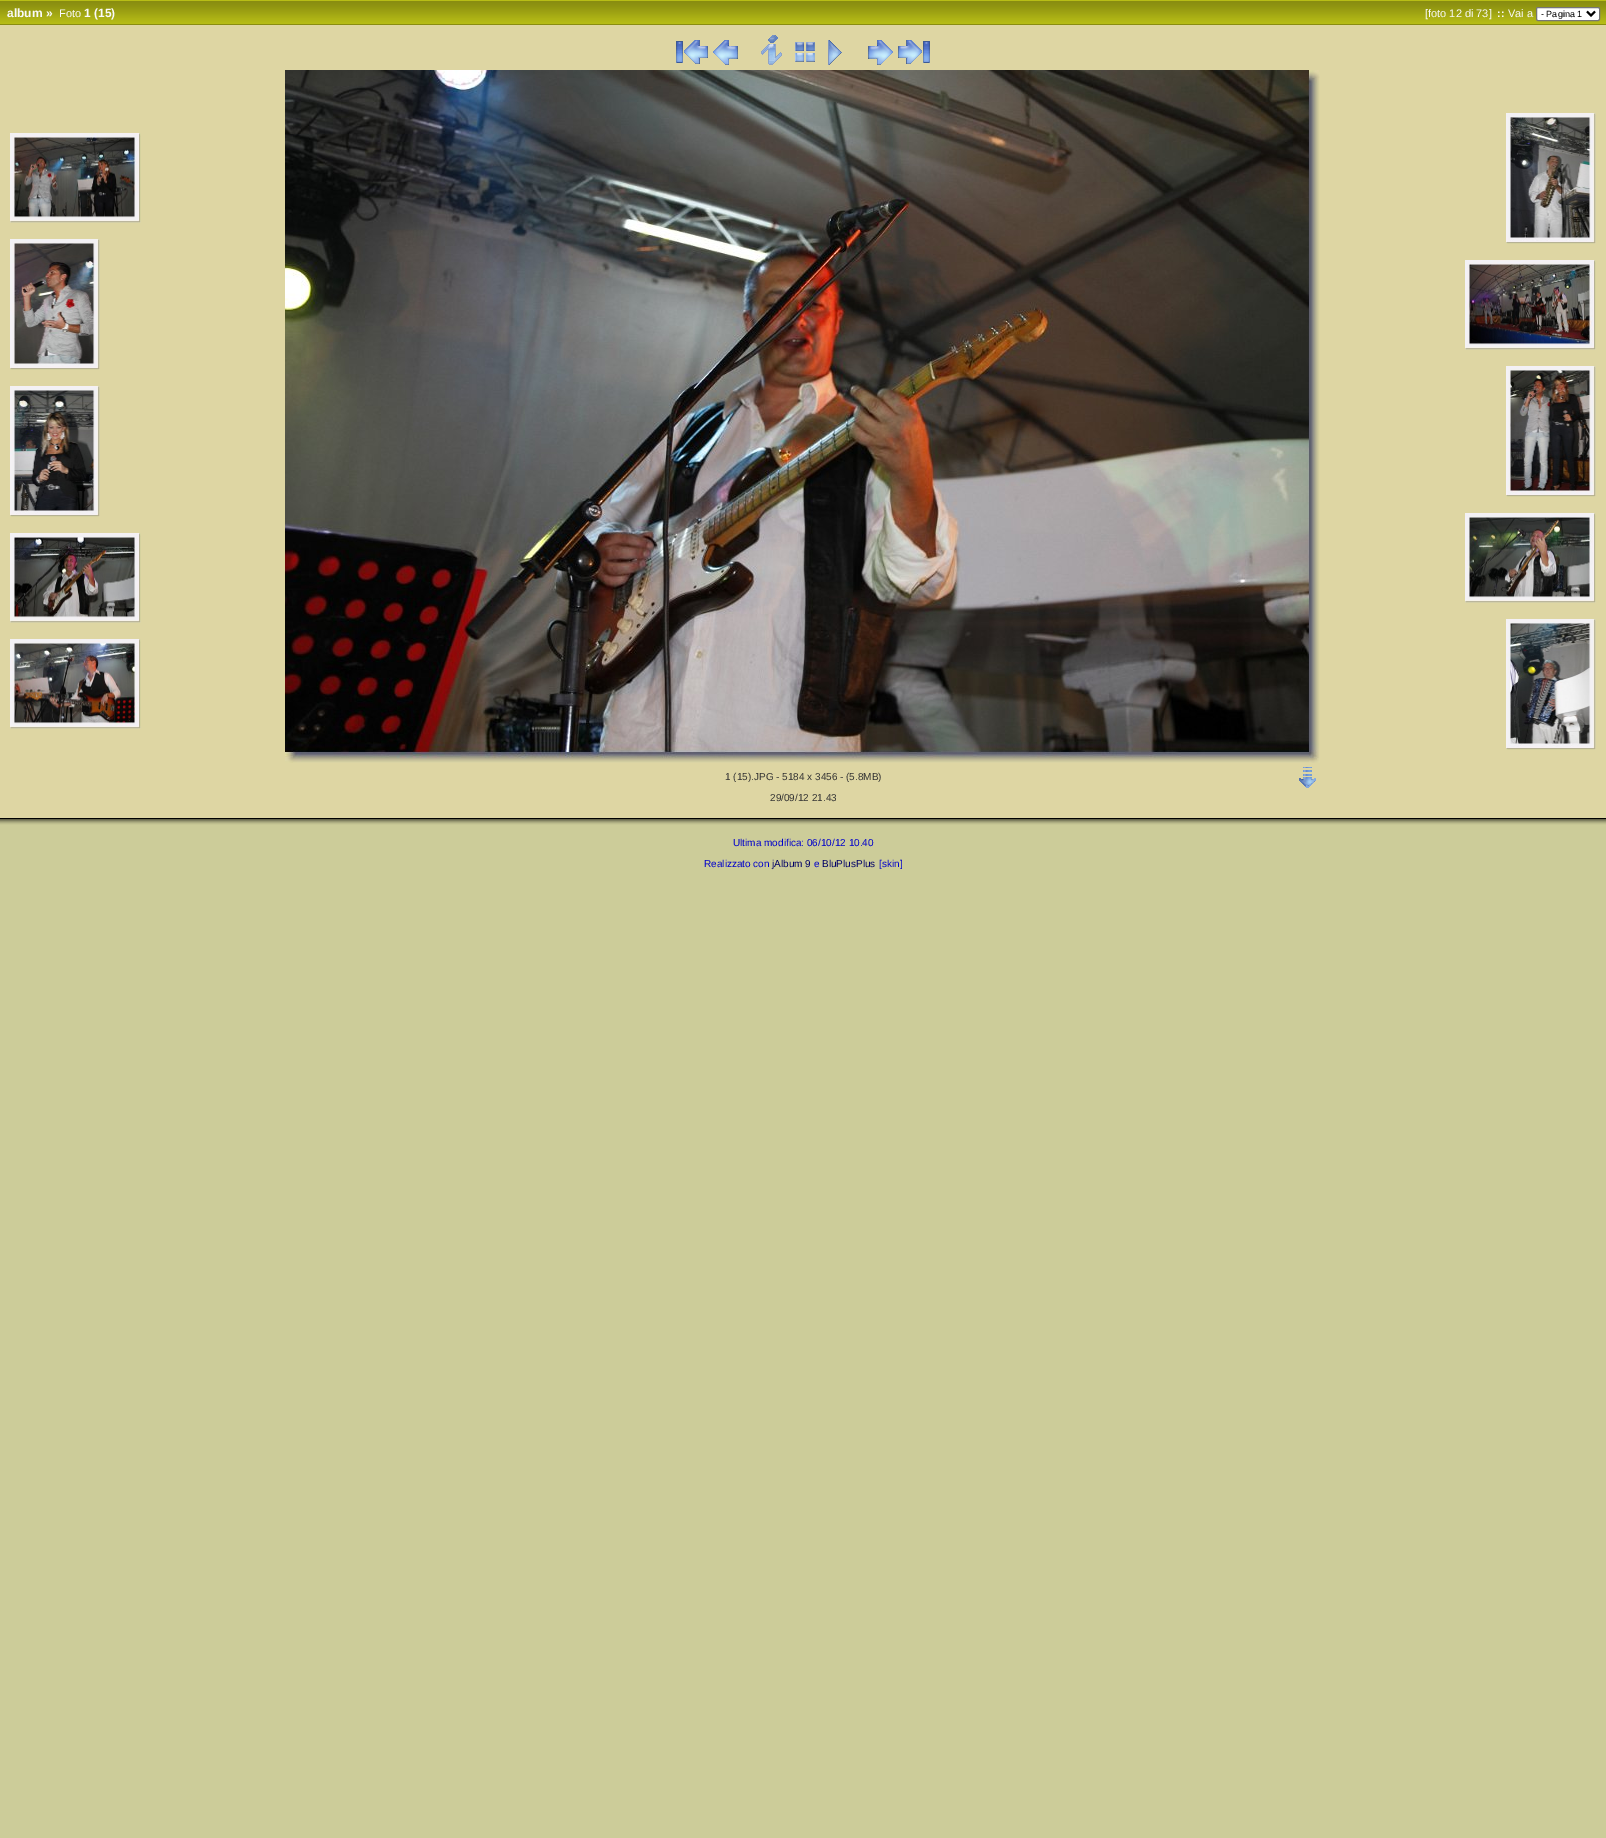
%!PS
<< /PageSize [1606 1838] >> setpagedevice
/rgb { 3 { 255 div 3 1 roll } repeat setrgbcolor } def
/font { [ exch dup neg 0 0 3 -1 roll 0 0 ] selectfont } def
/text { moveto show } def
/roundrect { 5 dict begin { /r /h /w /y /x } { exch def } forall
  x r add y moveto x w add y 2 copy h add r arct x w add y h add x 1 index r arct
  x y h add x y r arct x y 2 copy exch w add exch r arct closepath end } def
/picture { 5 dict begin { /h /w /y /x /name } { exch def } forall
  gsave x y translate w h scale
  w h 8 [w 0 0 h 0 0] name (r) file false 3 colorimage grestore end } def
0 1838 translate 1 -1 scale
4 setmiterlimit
204 204 153 rgb
0 0 1606 1838 rectfill
(img_01.rgb) 0 0 1606 25 picture
255 255 255 rgb
1536.5 7.5 63 13 1.5 roundrect gsave fill grestore
118 118 118 rgb
stroke
0 0 0 rgb
2 setlinewidth
1587 11.5 moveto 4 4 rlineto 4 -4 rlineto stroke
222 214 163 rgb
0 25 1606 793 rectfill
(img_02.rgb) 676 40 32 24 picture
(img_03.rgb) 713 40 25 25 picture
(img_04.rgb) 761 35 21 30 picture
(img_05.rgb) 795 42 20 20 picture
(img_06.rgb) 828 40 14 25 picture
(img_07.rgb) 868 40 25 25 picture
(img_08.rgb) 898 40 32 24 picture
(img_09.rgb) 10 133 131 90 picture
(img_10.rgb) 10 239 90 131 picture
(img_11.rgb) 10 386 90 131 picture
(img_12.rgb) 10 533 131 90 picture
(img_13.rgb) 10 639 131 90 picture
(img_14.rgb) 1506 113 90 131 picture
(img_15.rgb) 1465 260 131 90 picture
(img_16.rgb) 1506 366 90 131 picture
(img_17.rgb) 1465 513 131 90 picture
(img_18.rgb) 1506 619 90 131 picture
(img_19.rgb) 285 70 1035 693 picture
(img_20.rgb) 1299 767 17 21 picture
0 0 0 rgb
0 818 1606 1 rectfill
102 102 76 rgb
0 819 1606 1 rectfill
127 127 95 rgb
0 820 1606 1 rectfill
153 153 114 rgb
0 821 1606 1 rectfill
173 173 130 rgb
0 822 1606 1 rectfill
189 189 141 rgb
0 823 1606 1 rectfill
199 199 149 rgb
0 824 1606 1 rectfill
/LiberationSans-Bold 12 font
250 250 250 rgb
(album ») 7 17 text
/LiberationSans-Regular 11 font
(Foto) 59 17 text
/LiberationSans-Bold 12 font
(1 \(15\)) 84 17 text
/LiberationSans-Regular 11 font
([foto 12 di 73]) 1425 17 text
/LiberationSans-Bold 11 font
(::) 1497 17 text
/LiberationSans-Regular 11 font
(Vai a) 1508 17 text
/LiberationSans-Regular 9 font
0 0 0 rgb
(- Pagina 1) 1541 17 text
/LiberationSans-Regular 10 font
51 51 51 rgb
(1 \(15\).JPG - 5184 x 3456 - \(5.8MB\)) 725 780 text
(29/09/12 21.43) 770 801 text
0 0 204 rgb
(Ultima modifica: 06/10/12 10.40) 733 846 text
(Realizzato con) 704 867 text
0 0 102 rgb
(jAlbum 9) 772 867 text
0 0 204 rgb
(e) 814 867 text
0 0 102 rgb
(BluPlusPlus) 822 867 text
0 0 204 rgb
([skin]) 879 867 text
showpage
